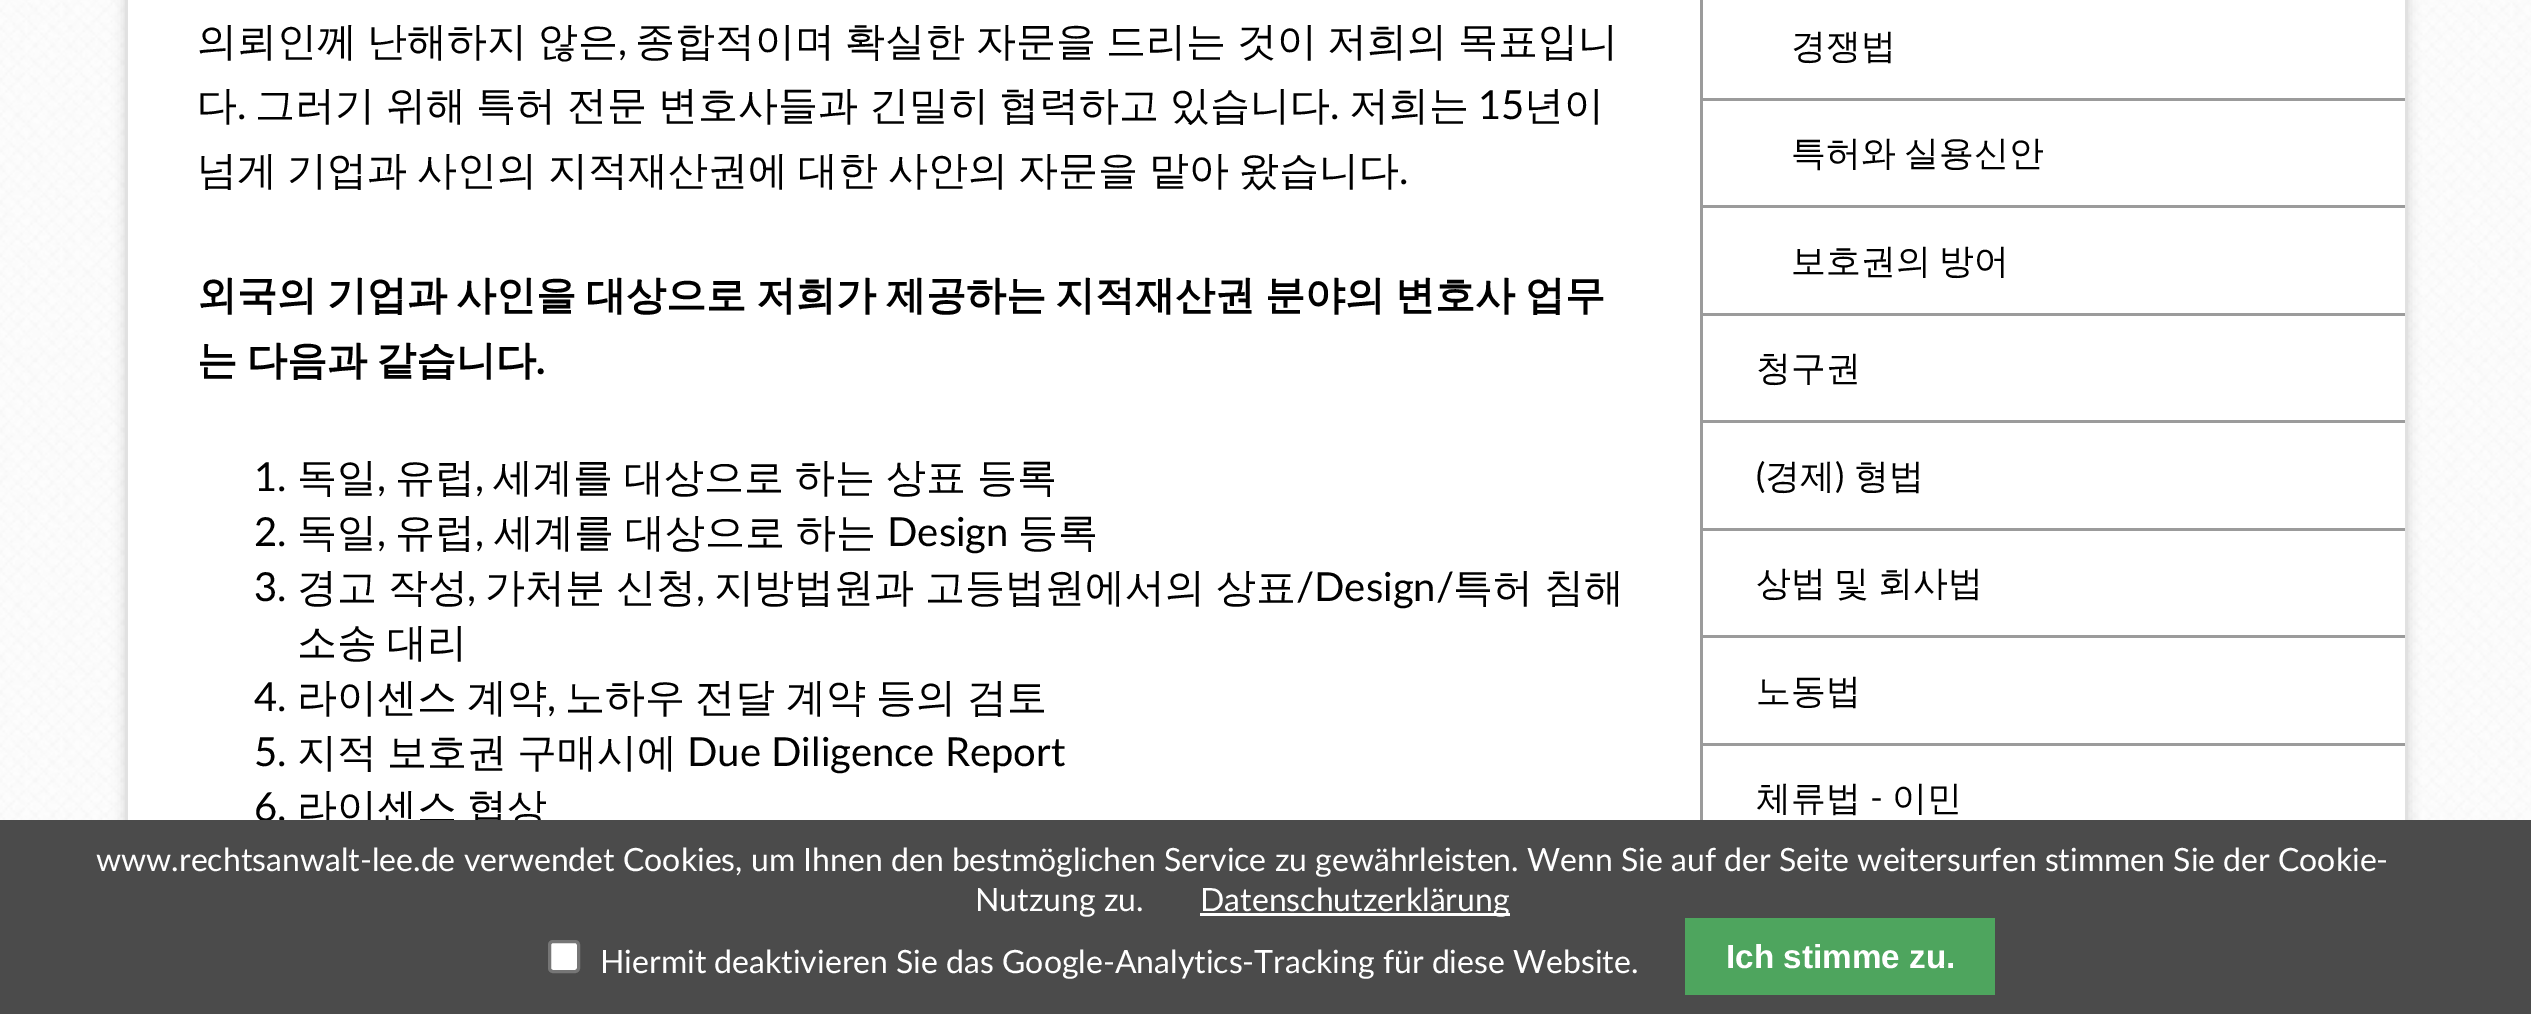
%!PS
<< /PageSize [2531 1014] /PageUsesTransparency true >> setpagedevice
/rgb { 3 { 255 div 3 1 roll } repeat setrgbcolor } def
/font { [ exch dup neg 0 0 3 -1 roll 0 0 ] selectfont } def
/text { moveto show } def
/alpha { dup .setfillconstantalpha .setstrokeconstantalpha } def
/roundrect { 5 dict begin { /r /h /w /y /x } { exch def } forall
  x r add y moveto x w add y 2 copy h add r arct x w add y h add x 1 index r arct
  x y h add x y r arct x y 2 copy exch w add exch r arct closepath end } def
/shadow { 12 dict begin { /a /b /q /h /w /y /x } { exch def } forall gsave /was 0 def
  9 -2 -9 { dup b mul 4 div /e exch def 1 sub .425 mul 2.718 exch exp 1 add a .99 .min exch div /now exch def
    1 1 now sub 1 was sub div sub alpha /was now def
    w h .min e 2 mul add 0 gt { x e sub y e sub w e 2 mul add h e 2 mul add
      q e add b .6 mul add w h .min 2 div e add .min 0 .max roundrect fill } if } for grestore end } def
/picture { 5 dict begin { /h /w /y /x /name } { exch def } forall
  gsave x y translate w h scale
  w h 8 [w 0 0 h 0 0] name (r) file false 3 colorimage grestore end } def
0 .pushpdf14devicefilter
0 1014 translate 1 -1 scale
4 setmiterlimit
255 255 255 rgb
0 0 2531 1014 rectfill
(img_01.rgb) 0 0 2531 820 picture
0 0 0 rgb
125 -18 2283 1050 0 6 0.15 shadow
225 225 225 rgb
2405 0 3 820 rectfill
125 0 3 820 rectfill
255 255 255 rgb
128 0 2277 820 rectfill
155 155 155 rgb
1700 98 705 3 rectfill
1700 0 3 100 rectfill
1700 205 705 3 rectfill
1700 100 3 108 rectfill
1700 313 705 3 rectfill
1700 208 3 107 rectfill
1700 420 705 3 rectfill
1700 315 3 108 rectfill
1700 528 705 3 rectfill
1700 423 3 107 rectfill
1700 635 705 3 rectfill
1700 530 3 108 rectfill
1700 743 705 3 rectfill
1700 638 3 182 rectfill
/WenQuanYiZenHei-Medium 40 font
0 0 0 rgb
197 55 moveto -1.5 0 32 (의뢰인께 난해하지 않은) widthshow
/Lato-Regular 40 font
(,) 618 55 text
/WenQuanYiZenHei-Medium 40 font
635 55 moveto -1.5 0 32 (종합적이며 확실한 자문을 드리는 것이 저희의 목표입니) widthshow
(다) 197 119 text
/Lato-Regular 40 font
(.) 237 119 text
/WenQuanYiZenHei-Medium 40 font
255 119 moveto -1.25 0 32 (그러기 위해 특허 전문 변호사들과 긴밀히 협력하고 있습니다) widthshow
/Lato-Regular 40 font
(.) 1330 119 text
/WenQuanYiZenHei-Medium 40 font
(저희는) 1349 119 text
/Lato-Regular 40 font
(15) 1478 119 text
/WenQuanYiZenHei-Medium 40 font
(년이) 1524 119 text
197 184 moveto -1.75 0 32 (넘게 기업과 사인의 지적재산권에 대한 사안의 자문을 맡아 왔습니다) widthshow
/Lato-Regular 40 font
(.) 1399 184 text
/WenQuanYiZenHei-Bold 40 font
197 309 moveto -2.25 0 32 (외국의 기업과 사인을 대상으로 저희가 제공하는 지적재산권 분야의 변호사 업무) widthshow
197 374 moveto -2.25 0 32 (는 다음과 같습니다) widthshow
/Lato-Bold 40 font
(.) 536 374 text
/Lato-Regular 40 font
(1.) 254 491 text
/WenQuanYiZenHei-Medium 40 font
(독일) 297 491 text
/Lato-Regular 40 font
(,) 377 491 text
/WenQuanYiZenHei-Medium 40 font
(유럽) 395 491 text
/Lato-Regular 40 font
(,) 475 491 text
/WenQuanYiZenHei-Medium 40 font
493 491 moveto -1 0 32 (세계를 대상으로 하는 상표 등록) widthshow
/Lato-Regular 40 font
(2.) 254 546 text
/WenQuanYiZenHei-Medium 40 font
(독일) 297 546 text
/Lato-Regular 40 font
(,) 377 546 text
/WenQuanYiZenHei-Medium 40 font
(유럽) 395 546 text
/Lato-Regular 40 font
(,) 475 546 text
/WenQuanYiZenHei-Medium 40 font
494 546 moveto -1 0 32 (세계를 대상으로 하는) widthshow
/Lato-Regular 40 font
(Design) 887 546 text
/WenQuanYiZenHei-Medium 40 font
(등록) 1018 546 text
/Lato-Regular 40 font
(3.) 254 601 text
/WenQuanYiZenHei-Medium 40 font
297 601 moveto -1 0 32 (경고 작성) widthshow
/Lato-Regular 40 font
(,) 467 601 text
/WenQuanYiZenHei-Medium 40 font
485 601 moveto -1 0 32 (가처분 신청) widthshow
/Lato-Regular 40 font
(,) 696 601 text
/WenQuanYiZenHei-Medium 40 font
714 601 moveto -1 0 32 (지방법원과 고등법원에서의 상표) widthshow
/Lato-Regular 40 font
(/Design/) 1296 601 text
/WenQuanYiZenHei-Medium 40 font
1453 601 moveto -1 0 32 (특허 침해) widthshow
297 656 moveto -1.75 0 32 (소송 대리) widthshow
/Lato-Regular 40 font
(4.) 254 711 text
/WenQuanYiZenHei-Medium 40 font
297 711 moveto -1.5 0 32 (라이센스 계약) widthshow
/Lato-Regular 40 font
(,) 547 711 text
/WenQuanYiZenHei-Medium 40 font
565 711 moveto -1.5 0 32 (노하우 전달 계약 등의 검토) widthshow
/Lato-Regular 40 font
(5.) 254 766 text
/WenQuanYiZenHei-Medium 40 font
(지적) 297 766 text
(보호권) 387 766 text
(구매시에) 517 766 text
/Lato-Regular 40 font
(Due Diligence Report) 687 766 text
(6.) 254 821 text
/WenQuanYiZenHei-Medium 40 font
297 821 moveto -1.75 0 32 (라이센스 협상) widthshow
/WenQuanYiZenHei-Medium 35 font
(경쟁법) 1791 58 text
1791 165 moveto -2 0 32 (특허와 실용신안) widthshow
1791 273 moveto -2 0 32 (보호권의 방어) widthshow
(청구권) 1756 380 text
/Lato-Regular 35 font
(\() 1756 488 text
/WenQuanYiZenHei-Medium 35 font
(경제) 1765 488 text
/Lato-Regular 35 font
(\)) 1835 488 text
/WenQuanYiZenHei-Medium 35 font
(형법) 1854 488 text
1756 595 moveto -2 0 32 (상법 및 회사법) widthshow
(노동법) 1756 703 text
(체류법) 1756 810 text
/Lato-Regular 35 font
(-) 1870 810 text
/WenQuanYiZenHei-Medium 35 font
(이민) 1892 810 text
75 75 75 rgb
0 820 2531 194 rectfill
/Lato-Regular 32 font
255 255 255 rgb
(www.rechtsanwalt-lee.de verwendet Cookies, um Ihnen den bestmöglichen Service zu gewährleisten. Wenn Sie auf der Seite weitersurfen stimmen Sie der Cookie-) 96 871 text
(Nutzung zu.) 975 911 text
1200 913 310 3 rectfill
(Datenschutzerklärung) 1200 911 text
549.5 941.5 29 30 3.5 roundrect gsave fill grestore
118 118 118 rgb
3 setlinewidth
stroke
255 255 255 rgb
(Hiermit deaktivieren Sie das Google-Analytics-Tracking für diese Website.) 600 973 text
78 165 94 rgb
1685 918 310 77 rectfill
/LiberationSans-Bold 33.25 font
255 255 255 rgb
(Ich stimme zu.) 1726 968 text
.poppdf14devicefilter showpage
